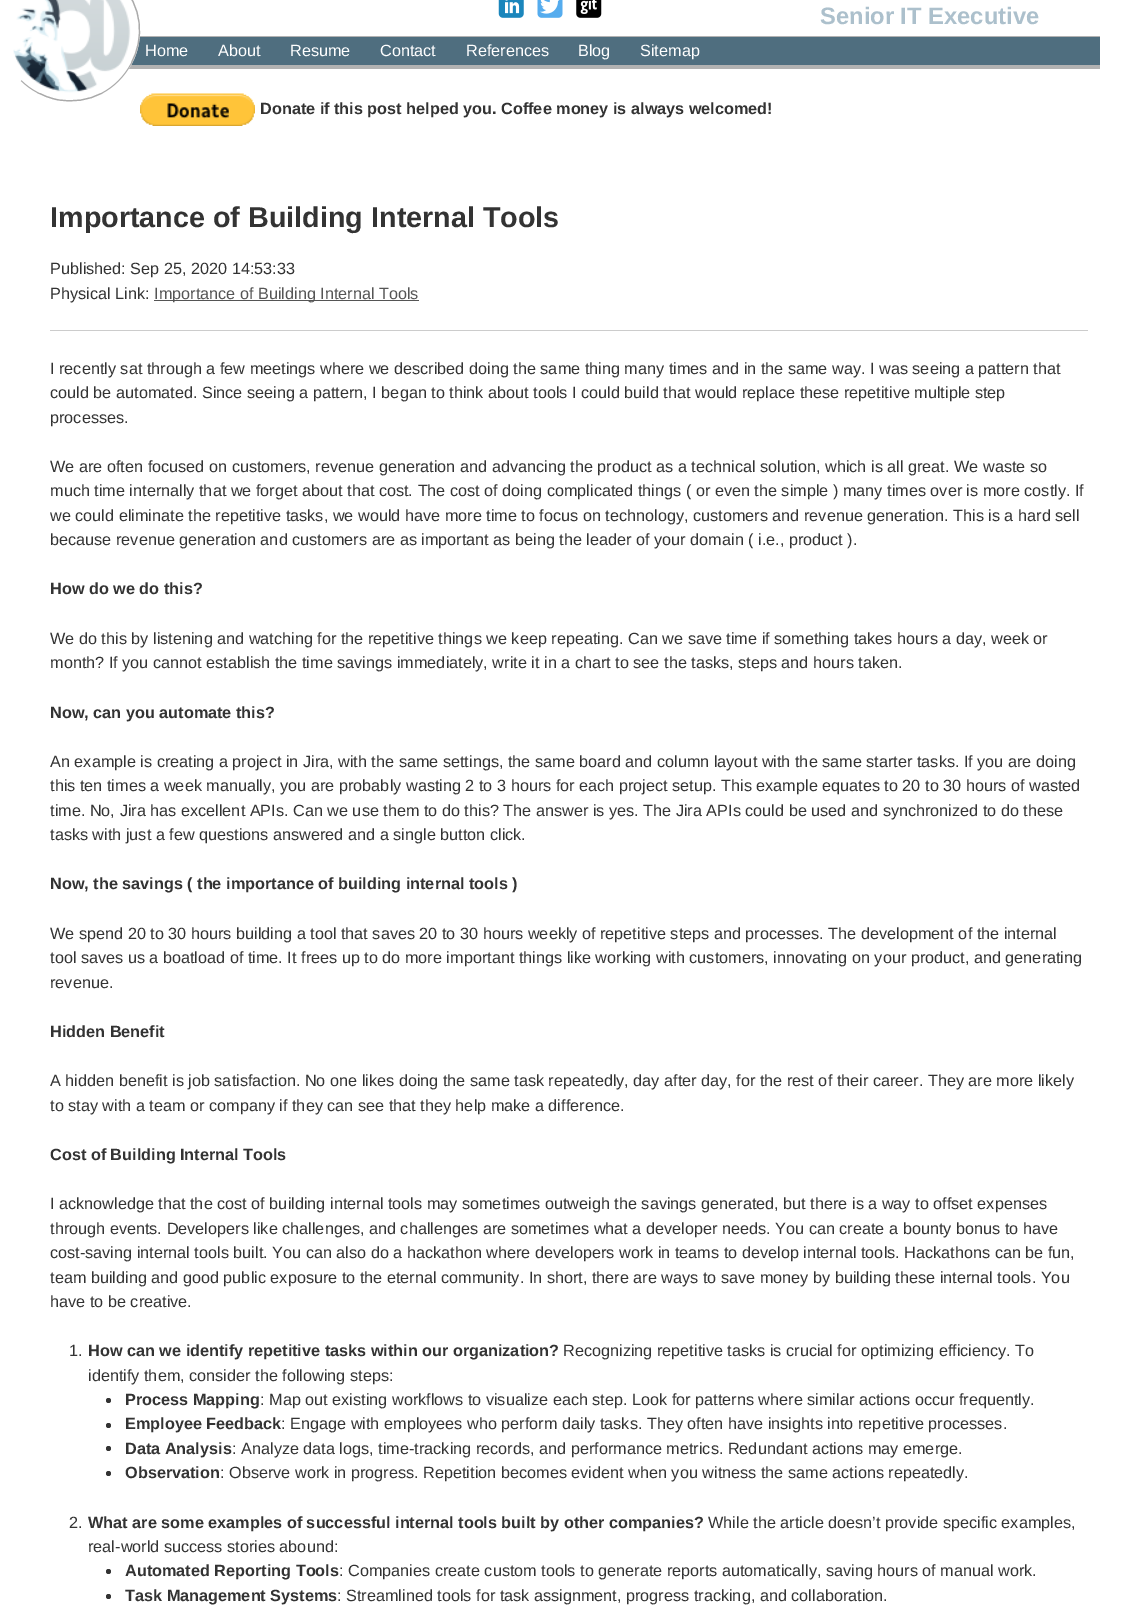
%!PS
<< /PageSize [1137 1606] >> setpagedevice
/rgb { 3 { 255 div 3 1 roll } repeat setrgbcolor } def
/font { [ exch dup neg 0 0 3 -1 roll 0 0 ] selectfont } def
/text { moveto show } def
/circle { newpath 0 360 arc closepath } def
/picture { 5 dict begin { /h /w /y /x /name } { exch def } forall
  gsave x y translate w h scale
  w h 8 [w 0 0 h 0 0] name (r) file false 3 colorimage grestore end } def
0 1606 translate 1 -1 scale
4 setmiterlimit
255 255 255 rgb
0 0 1137 1606 rectfill
79 110 127 rgb
131 37 969 28 rectfill
178 178 178 rgb
139 36 961 1 rectfill
128 65 972 4 rectfill
255 255 255 rgb
70 31 70 circle fill
170 170 170 rgb
1.2 setlinewidth
119 -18 moveto 48.5 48.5 4.5 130.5 -62.5 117.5 rcurveto -13.5 -3 -26 -9.5 -35.5 -19 rcurveto stroke
255 255 255 rgb
21 80.5 moveto -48.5 -48.5 -4.5 -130.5 62.5 -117.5 rcurveto 13.5 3 26 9.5 35.5 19 rcurveto stroke
(img_01.rgb) 13 0 118 93 picture
(img_02.rgb) 498 0 26 18 picture
(img_03.rgb) 537 0 26 18 picture
(img_04.rgb) 576 0 26 18 picture
(img_05.rgb) 140 93 115 33 picture
85 85 85 rgb
154 300 265 1 rectfill
204 204 204 rgb
50 330 1038 1 rectfill
51 51 51 rgb
108.5 1400.5 2.5 circle fill
108.5 1425.5 2.5 circle fill
108.5 1448.5 2.5 circle fill
108.5 1473.5 2.5 circle fill
108.5 1571.5 2.5 circle fill
108.5 1596.5 2.5 circle fill
/LiberationSans-Bold 23.75 font
172 192 204 rgb
(Senior IT Executive) 820 24 text
/LiberationSans-Regular 16.25 font
255 255 255 rgb
(Home) 145 56 text
(About) 218 56 text
(Resume) 290 56 text
(Contact) 380 56 text
(References) 466 56 text
(Blog) 578 56 text
(Sitemap) 640 56 text
/LiberationSans-Bold 16.25 font
51 51 51 rgb
(Donate if this post helped you. Coffee money is always welcomed!) 260 114 text
/LiberationSans-Bold 28.75 font
(Importance of Building Internal Tools) 50 227 text
/LiberationSans-Regular 16.25 font
(Published: Sep 25, 2020 14:53:33) 50 274 text
(Physical Link:) 50 299 text
85 85 85 rgb
(Importance of Building Internal Tools) 154 299 text
51 51 51 rgb
(I recently sat through a few meetings where we described doing the same thing many times and in the same way. I was seeing a pattern that) 50 374 text
(could be automated. Since seeing a pattern, I began to think about tools I could build that would replace these repetitive multiple step) 50 398 text
(processes.) 50 423 text
(We are often focused on customers, revenue generation and advancing the product as a technical solution, which is all great. We waste so) 50 472 text
(much time internally that we forget about that cost. The cost of doing complicated things \( or even the simple \) many times over is more costly. If) 50 496 text
(we could eliminate the repetitive tasks, we would have more time to focus on technology, customers and revenue generation. This is a hard sell) 50 521 text
(because revenue generation and customers are as important as being the leader of your domain \( i.e., product \).) 50 545 text
/LiberationSans-Bold 16.25 font
(How do we do this?) 50 594 text
/LiberationSans-Regular 16.25 font
(We do this by listening and watching for the repetitive things we keep repeating. Can we save time if something takes hours a day, week or) 50 644 text
(month? If you cannot establish the time savings immediately, write it in a chart to see the tasks, steps and hours taken.) 50 668 text
/LiberationSans-Bold 16.25 font
(Now, can you automate this?) 50 718 text
/LiberationSans-Regular 16.25 font
(An example is creating a project in Jira, with the same settings, the same board and column layout with the same starter tasks. If you are doing) 50 767 text
(this ten times a week manually, you are probably wasting 2 to 3 hours for each project setup. This example equates to 20 to 30 hours of wasted) 50 791 text
(time. No, Jira has excellent APIs. Can we use them to do this? The answer is yes. The Jira APIs could be used and synchronized to do these) 50 816 text
(tasks with just a few questions answered and a single button click.) 50 840 text
/LiberationSans-Bold 16.25 font
(Now, the savings \( the importance of building internal tools \)) 50 889 text
/LiberationSans-Regular 16.25 font
(We spend 20 to 30 hours building a tool that saves 20 to 30 hours weekly of repetitive steps and processes. The development of the internal) 50 939 text
(tool saves us a boatload of time. It frees up to do more important things like working with customers, innovating on your product, and generating) 50 963 text
(revenue.) 50 988 text
/LiberationSans-Bold 16.25 font
(Hidden Benefit) 50 1037 text
/LiberationSans-Regular 16.25 font
(A hidden benefit is job satisfaction. No one likes doing the same task repeatedly, day after day, for the rest of their career. They are more likely) 50 1086 text
(to stay with a team or company if they can see that they help make a difference.) 50 1111 text
/LiberationSans-Bold 16.25 font
(Cost of Building Internal Tools) 50 1160 text
/LiberationSans-Regular 16.25 font
(I acknowledge that the cost of building internal tools may sometimes outweigh the savings generated, but there is a way to offset expenses) 50 1209 text
(through events. Developers like challenges, and challenges are sometimes what a developer needs. You can create a bounty bonus to have) 50 1234 text
(cost-saving internal tools built. You can also do a hackathon where developers work in teams to develop internal tools. Hackathons can be fun,) 50 1258 text
(team building and good public exposure to the eternal community. In short, there are ways to save money by building these internal tools. You) 50 1283 text
(have to be creative.) 50 1307 text
(1.) 69 1356 text
/LiberationSans-Bold 16.25 font
(How can we identify repetitive tasks within our organization?) 88 1356 text
/LiberationSans-Regular 16.25 font
(Recognizing repetitive tasks is crucial for optimizing efficiency. To) 563 1356 text
(identify them, consider the following steps:) 88 1381 text
/LiberationSans-Bold 16.25 font
(Process Mapping) 125 1405 text
/LiberationSans-Regular 16.25 font
(: Map out existing workflows to visualize each step. Look for patterns where similar actions occur frequently.) 260 1405 text
/LiberationSans-Bold 16.25 font
(Employee Feedback) 125 1429 text
/LiberationSans-Regular 16.25 font
(: Engage with employees who perform daily tasks. They often have insights into repetitive processes.) 281 1429 text
/LiberationSans-Bold 16.25 font
(Data Analysis) 125 1454 text
/LiberationSans-Regular 16.25 font
(: Analyze data logs, time-tracking records, and performance metrics. Redundant actions may emerge.) 232 1454 text
/LiberationSans-Bold 16.25 font
(Observation) 125 1478 text
/LiberationSans-Regular 16.25 font
(: Observe work in progress. Repetition becomes evident when you witness the same actions repeatedly.) 220 1478 text
(2.) 69 1528 text
/LiberationSans-Bold 16.25 font
(What are some examples of successful internal tools built by other companies?) 88 1528 text
/LiberationSans-Regular 16.25 font
(While the article doesn’t provide specific examples,) 708 1528 text
(real-world success stories abound:) 88 1552 text
/LiberationSans-Bold 16.25 font
(Automated Reporting Tools) 125 1576 text
/LiberationSans-Regular 16.25 font
(: Companies create custom tools to generate reports automatically, saving hours of manual work.) 339 1576 text
/LiberationSans-Bold 16.25 font
(Task Management Systems) 125 1601 text
/LiberationSans-Regular 16.25 font
(: Streamlined tools for task assignment, progress tracking, and collaboration.) 337 1601 text
showpage
